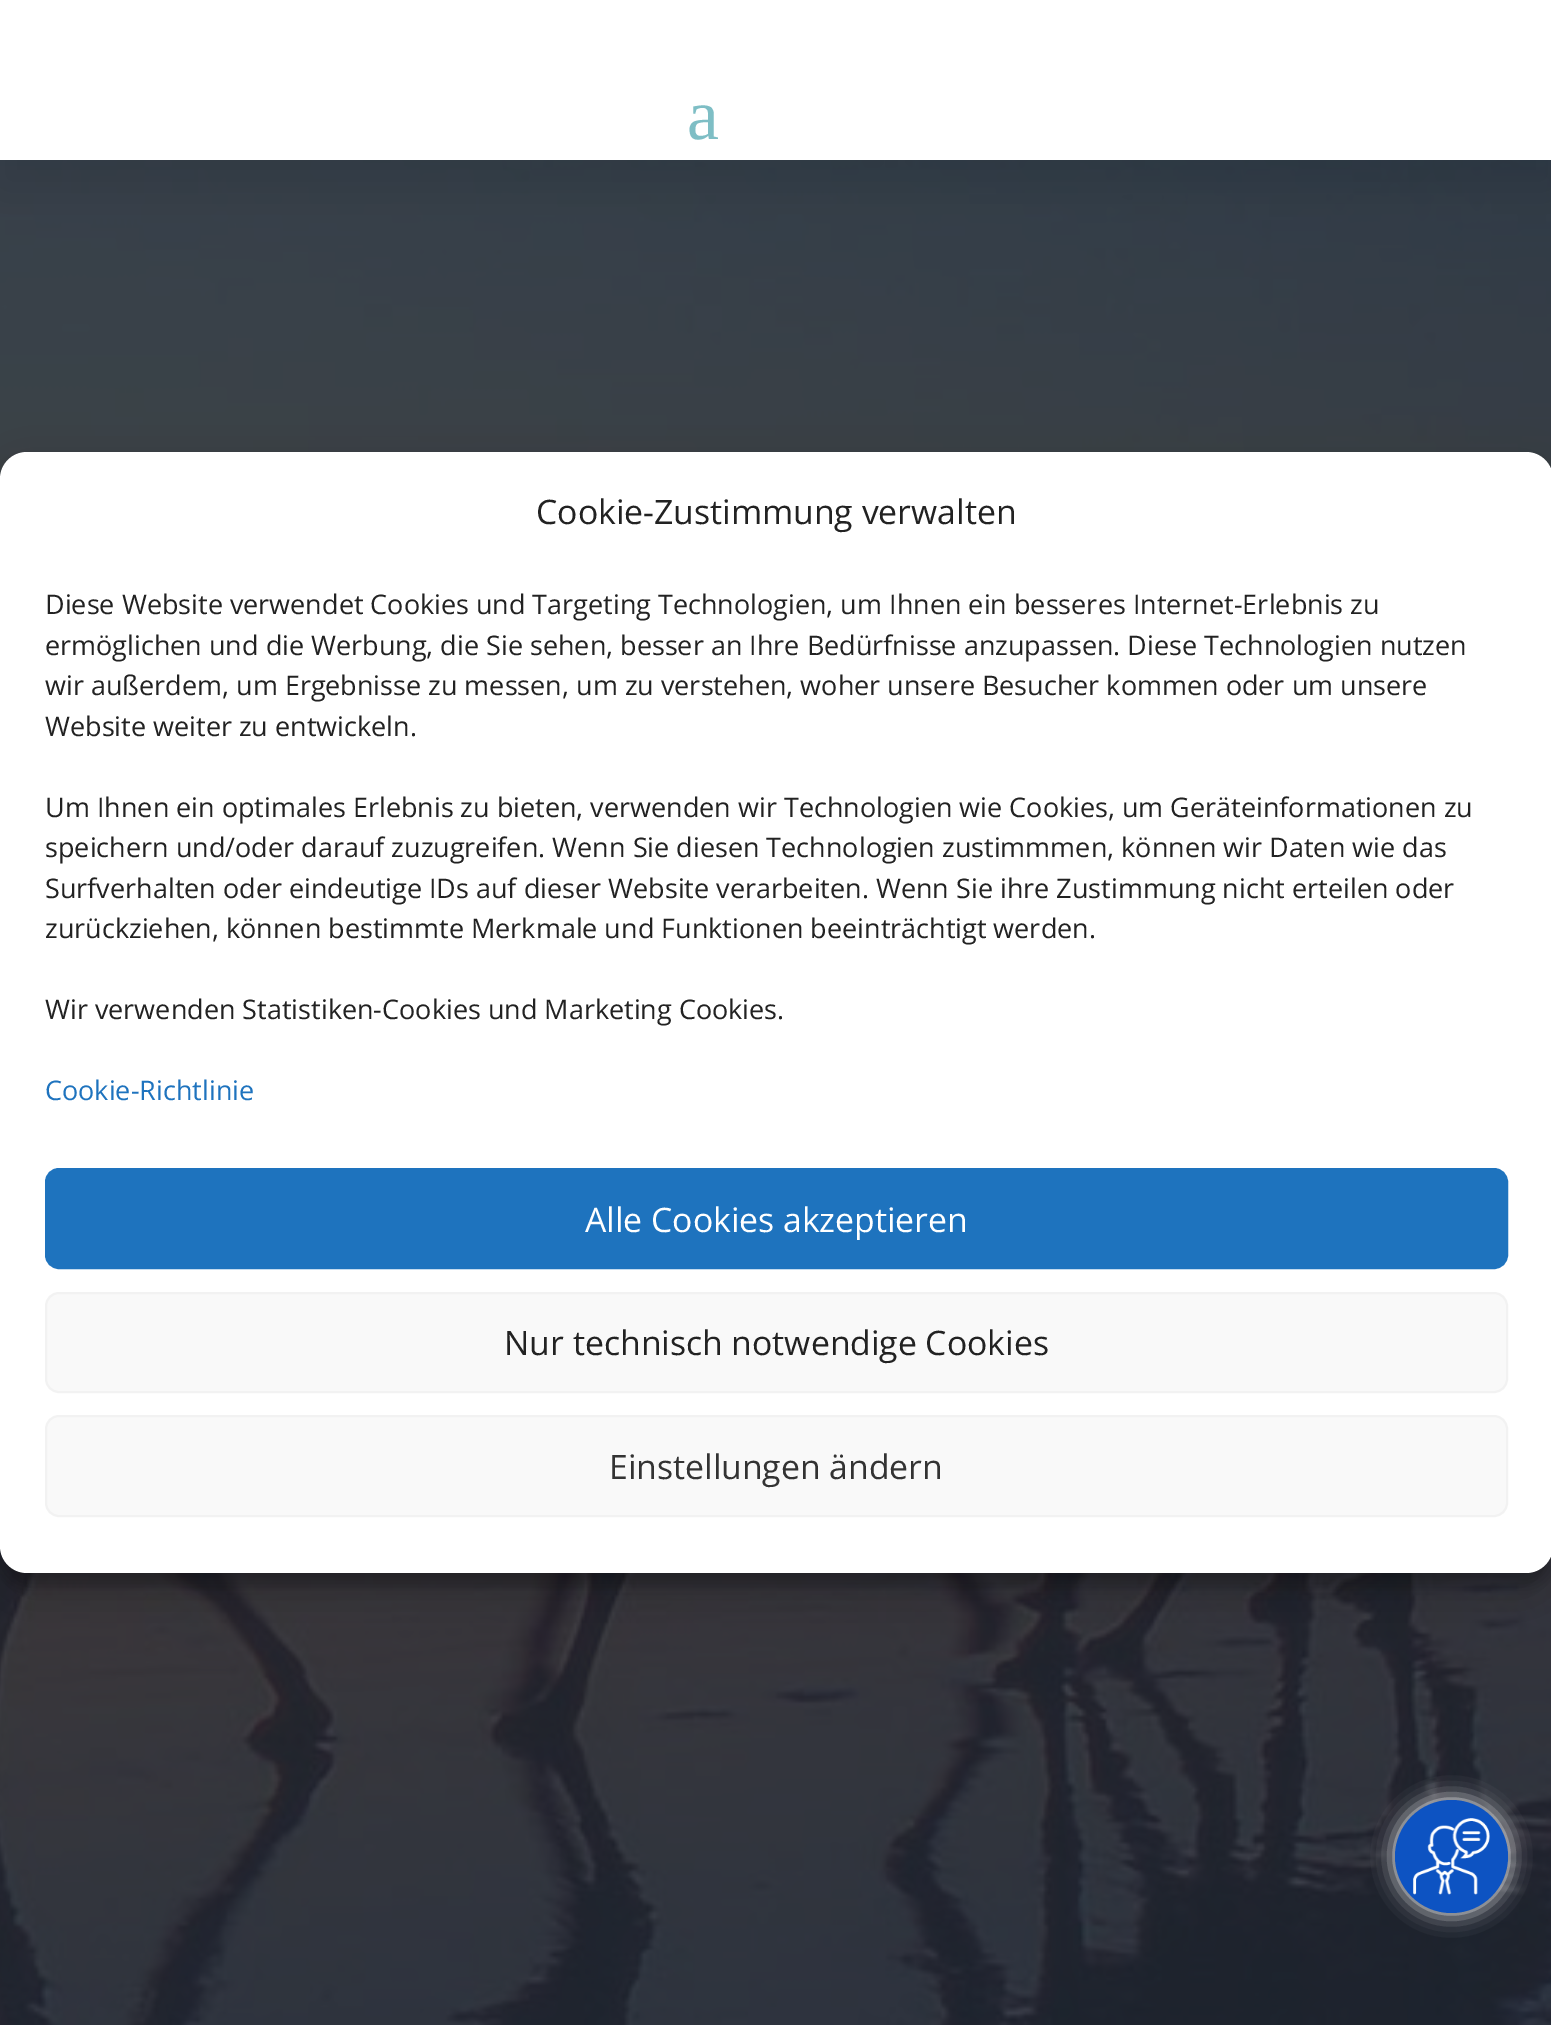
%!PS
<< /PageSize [1551 2025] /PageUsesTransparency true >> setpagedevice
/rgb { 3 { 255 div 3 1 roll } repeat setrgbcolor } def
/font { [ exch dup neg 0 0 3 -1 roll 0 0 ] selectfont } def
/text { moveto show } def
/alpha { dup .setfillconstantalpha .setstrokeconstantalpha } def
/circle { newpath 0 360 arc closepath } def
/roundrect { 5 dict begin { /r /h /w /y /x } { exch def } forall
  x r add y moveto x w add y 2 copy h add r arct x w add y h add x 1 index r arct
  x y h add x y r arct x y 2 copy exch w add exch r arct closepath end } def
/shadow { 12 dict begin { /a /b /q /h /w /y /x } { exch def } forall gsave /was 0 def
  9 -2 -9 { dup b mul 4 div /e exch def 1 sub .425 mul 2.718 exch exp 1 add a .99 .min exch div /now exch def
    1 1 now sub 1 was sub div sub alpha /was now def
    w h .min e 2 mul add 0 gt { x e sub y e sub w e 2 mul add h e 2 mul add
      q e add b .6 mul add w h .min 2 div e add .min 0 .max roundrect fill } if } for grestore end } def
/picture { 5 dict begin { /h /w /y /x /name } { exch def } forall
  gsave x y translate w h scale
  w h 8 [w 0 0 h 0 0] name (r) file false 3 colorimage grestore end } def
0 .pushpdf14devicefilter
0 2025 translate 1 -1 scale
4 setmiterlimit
255 255 255 rgb
0 0 1551 2025 rectfill
(img_01.rgb) 0 160 1551 1865 picture
0 0 0 rgb
0 27 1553 160 0 22.5 0.1 shadow
255 255 255 rgb
0 0 1551 160 rectfill
1395 1800 113 113 56.5 11 1 shadow
13 83 194 rgb
1451.5 1856.5 56.5 circle fill
(img_02.rgb) 1413 1818 77 77 picture
0 0 0 rgb
0 466 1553 1120 27 7 0.23 shadow
0 475 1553 1120 27 22.5 0.19 shadow
255 255 255 rgb
0 452 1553 1121 27 roundrect fill
30 115 190 rgb
46 1169 1461 99 13 roundrect gsave fill grestore
2 setlinewidth
stroke
249 249 249 rgb
46 1293 1461 99 13 roundrect gsave fill grestore
242 242 242 rgb
stroke
249 249 249 rgb
46 1416 1461 100 13 roundrect gsave fill grestore
242 242 242 rgb
stroke
/LiberationSerif-Regular 72 font
126 190 197 rgb
(a) 687 139 text
/OpenSans-Regular 33.75 font
34 34 34 rgb
(Cookie-Zustimmung verwalten) 536 524 text
/OpenSans-Regular 27 font
(Diese Website verwendet Cookies und Targeting Technologien, um Ihnen ein besseres Internet-Erlebnis zu) 45 614 text
(ermöglichen und die Werbung, die Sie sehen, besser an Ihre Bedürfnisse anzupassen. Diese Technologien nutzen) 45 655 text
(wir außerdem, um Ergebnisse zu messen, um zu verstehen, woher unsere Besucher kommen oder um unsere) 45 695 text
(Website weiter zu entwickeln.) 45 736 text
(Um Ihnen ein optimales Erlebnis zu bieten, verwenden wir Technologien wie Cookies, um Geräteinformationen zu) 45 817 text
(speichern und/oder darauf zuzugreifen. Wenn Sie diesen Technologien zustimmmen, können wir Daten wie das) 45 857 text
(Surfverhalten oder eindeutige IDs auf dieser Website verarbeiten. Wenn Sie ihre Zustimmung nicht erteilen oder) 45 898 text
(zurückziehen, können bestimmte Merkmale und Funktionen beeinträchtigt werden.) 45 938 text
(Wir verwenden Statistiken-Cookies und Marketing Cookies.) 45 1019 text
30 115 190 rgb
(Cookie-Richtlinie) 45 1100 text
/OpenSans-Regular 33.75 font
255 255 255 rgb
(Alle Cookies akzeptieren) 585 1232 text
34 34 34 rgb
(Nur technisch notwendige Cookies) 504 1355 text
51 51 51 rgb
(Einstellungen ändern) 609 1479 text
.poppdf14devicefilter showpage
